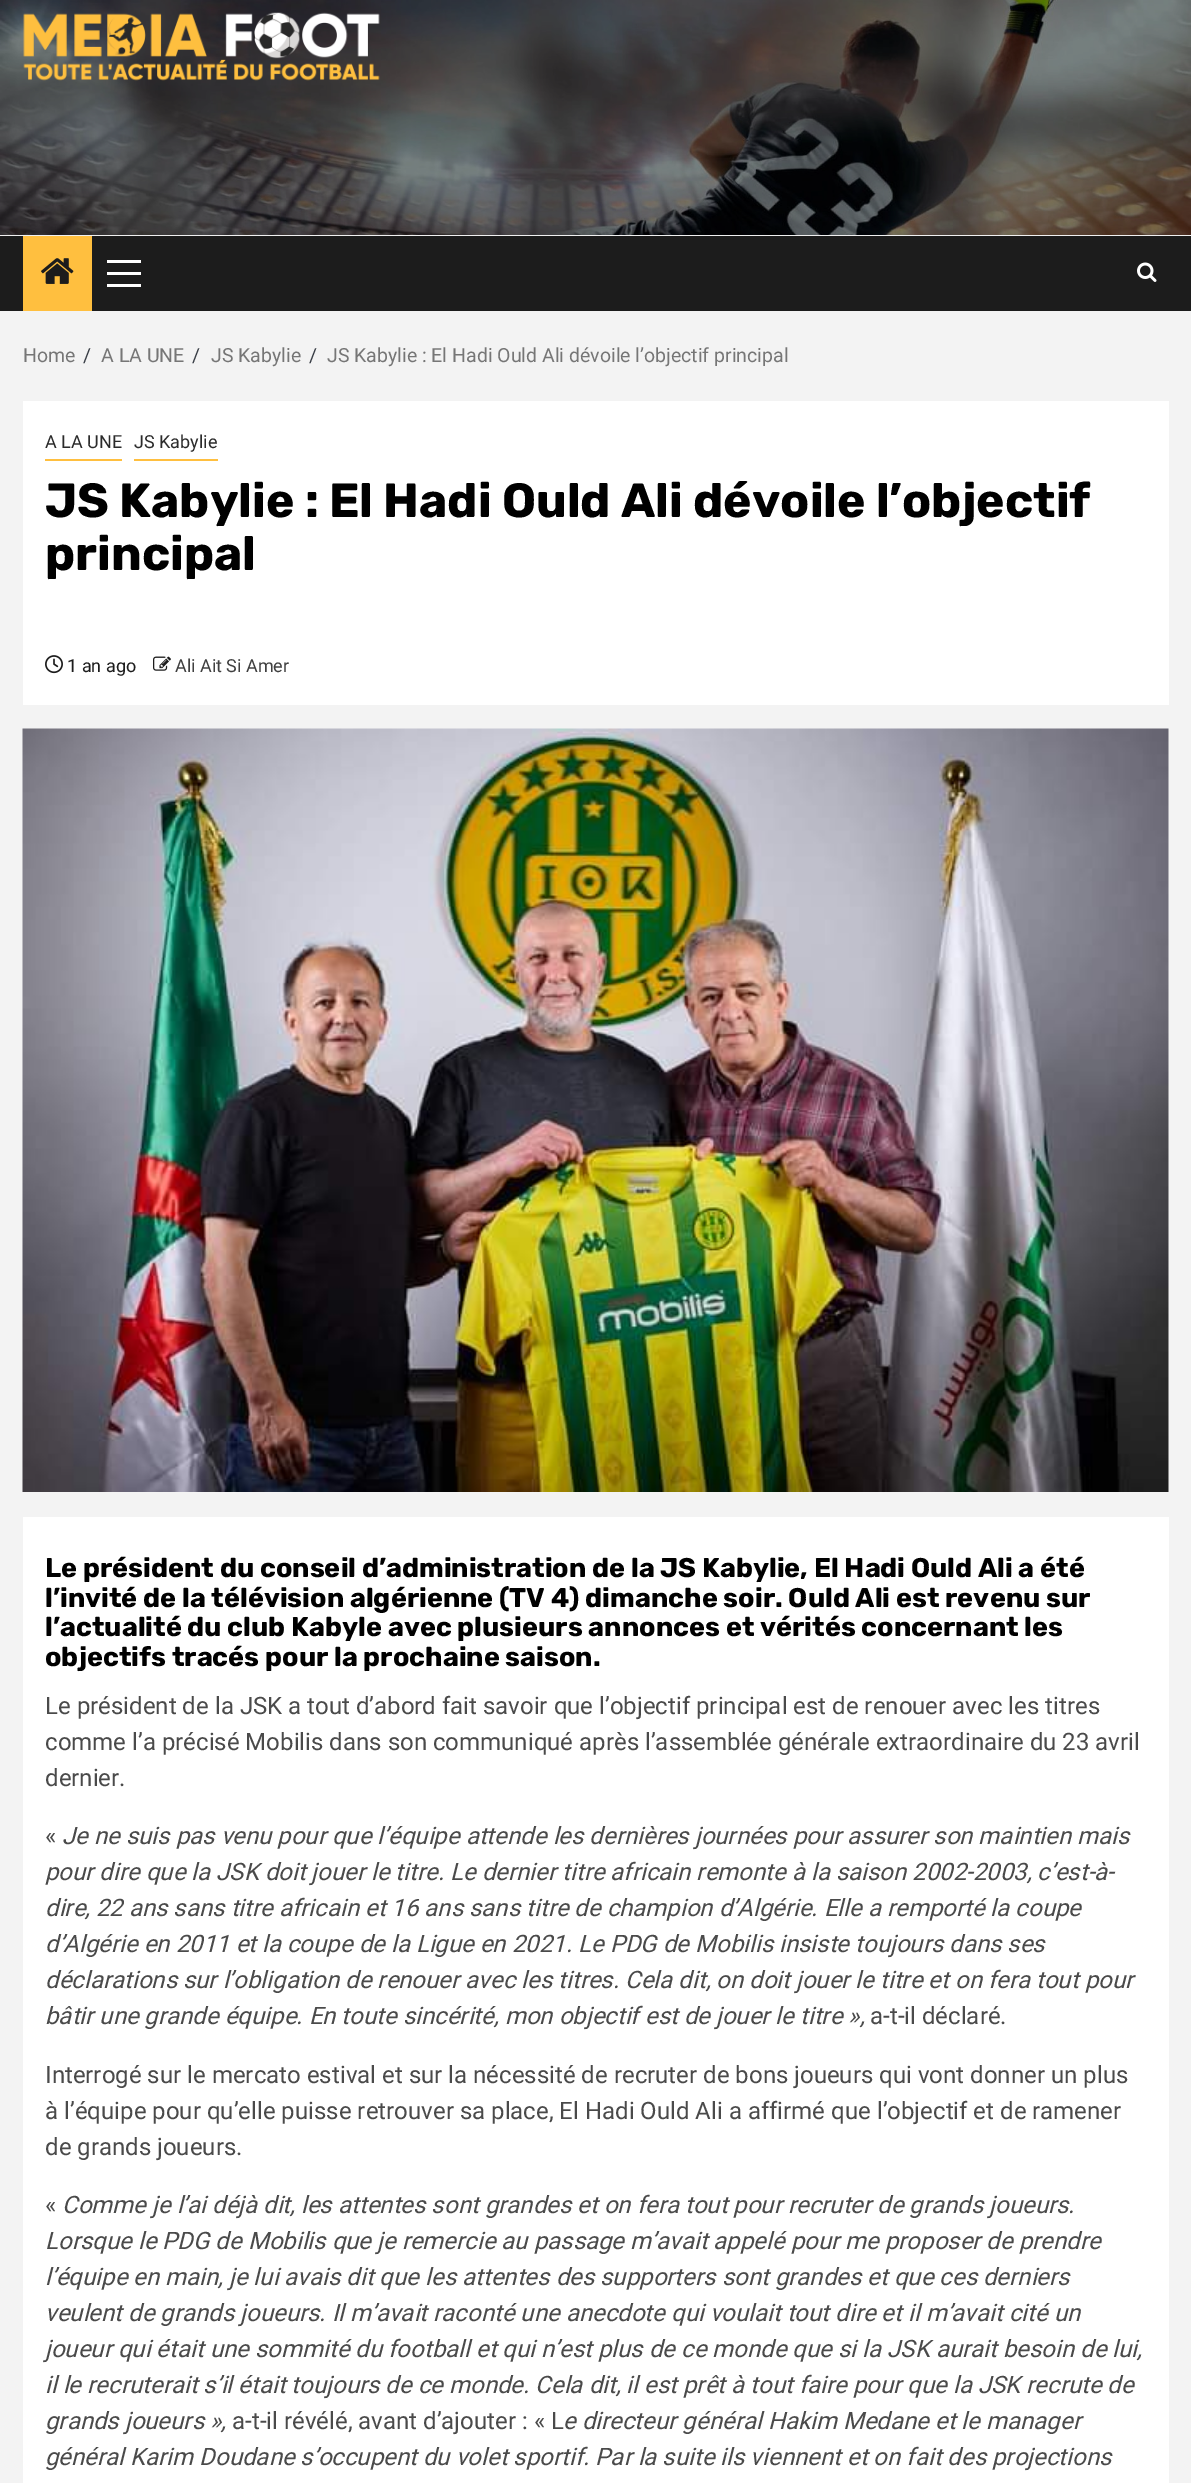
%!PS
<< /PageSize [1191 2483] >> setpagedevice
/rgb { 3 { 255 div 3 1 roll } repeat setrgbcolor } def
/font { [ exch dup neg 0 0 3 -1 roll 0 0 ] selectfont } def
/text { moveto show } def
/picture { 5 dict begin { /h /w /y /x /name } { exch def } forall
  gsave x y translate w h scale
  w h 8 [w 0 0 h 0 0] name (r) file false 3 colorimage grestore end } def
0 2483 translate 1 -1 scale
4 setmiterlimit
243 243 243 rgb
0 0 1191 2483 rectfill
240 240 240 rgb
0 235 1191 1 rectfill
(img_01.rgb) 0 0 1191 235 picture
(img_02.rgb) 23 12 357 69 picture
28 28 28 rgb
0 236 1191 75 rectfill
255 191 63 rgb
23 236 69 75 rectfill
(img_03.rgb) 41 258 33 26 picture
255 255 255 rgb
107 272 34 3 rectfill
107 260 34 3 rectfill
107 284 34 3 rectfill
(img_04.rgb) 1137 262 20 20 picture
23 401 1146 304 rectfill
255 191 63 rgb
45 459 77 2 rectfill
134 459 84 2 rectfill
(img_05.rgb) 45 655 18 19 picture
(img_06.rgb) 153 656 18 15 picture
(img_07.rgb) 22 728 1147 764 picture
255 255 255 rgb
23 1517 1146 966 rectfill
/Roboto-Regular 19.5 font
118 118 118 rgb
(Home) 23 362 text
57 62 70 rgb
(/) 83 362 text
118 118 118 rgb
(A LA UNE) 101 362 text
57 62 70 rgb
(/) 192 362 text
118 118 118 rgb
(JS Kabylie) 211 362 text
57 62 70 rgb
(/) 309 362 text
118 118 118 rgb
(JS Kabylie : El Hadi Ould Ali dévoile l’objectif principal) 327 362 text
/Roboto-Regular 18 font
43 43 43 rgb
(A LA UNE) 45 448 text
(JS Kabylie) 134 448 text
/Rubik-Bold 48 font
0 0 0 rgb
(JS Kabylie : El Hadi Ould Ali dévoile l’objectif) 45 517 text
(principal) 45 570 text
/Roboto-Regular 18 font
28 28 28 rgb
(1 an ago) 67 672 text
64 64 64 rgb
(Ali Ait Si Amer) 175 672 text
/Rubik-Bold 27 font
0 0 0 rgb
(Le président du conseil d’administration de la JS Kabylie, El Hadi Ould Ali a été) 45 1577 text
(l’invité de la télévision algérienne \(TV 4\) dimanche soir. Ould Ali est revenu sur) 45 1607 text
(l’actualité du club Kabyle avec plusieurs annonces et vérités concernant les) 45 1636 text
(objectifs tracés pour la prochaine saison.) 45 1666 text
/Roboto-Regular 24 font
74 74 74 rgb
(Le président de la JSK a tout d’abord fait savoir que l’objectif principal est de renouer avec les titres) 45 1714 text
(comme l’a précisé Mobilis dans son communiqué après l’assemblée générale extraordinaire du 23 avril) 45 1750 text
(dernier.) 45 1786 text
(«) 45 1844 text
/Roboto-Italic 24 font
(Je ne suis pas venu pour que l’équipe attende les dernières journées pour assurer son maintien mais) 62 1844 text
(pour dire que la JSK doit jouer le titre. Le dernier titre africain remonte à la saison 2002-2003, c’est-à-) 45 1880 text
(dire, 22 ans sans titre africain et 16 ans sans titre de champion d’Algérie. Elle a remporté la coupe) 45 1916 text
(d’Algérie en 2011 et la coupe de la Ligue en 2021. Le PDG de Mobilis insiste toujours dans ses) 45 1952 text
(déclarations sur l’obligation de renouer avec les titres. Cela dit, on doit jouer le titre et on fera tout pour) 45 1988 text
(bâtir une grande équipe. En toute sincérité, mon objectif est de jouer le titre »,) 45 2024 text
/Roboto-Regular 24 font
(a-t-il déclaré.) 870 2024 text
(Interrogé sur le mercato estival et sur la nécessité de recruter de bons joueurs qui vont donner un plus) 45 2083 text
(à l’équipe pour qu’elle puisse retrouver sa place, El Hadi Ould Ali a affirmé que l’objectif et de ramener) 45 2119 text
(de grands joueurs.) 45 2155 text
(«) 45 2213 text
/Roboto-Italic 24 font
(Comme je l’ai déjà dit, les attentes sont grandes et on fera tout pour recruter de grands joueurs.) 62 2213 text
(Lorsque le PDG de Mobilis que je remercie au passage m’avait appelé pour me proposer de prendre) 45 2249 text
(l’équipe en main, je lui avais dit que les attentes des supporters sont grandes et que ces derniers) 45 2285 text
(veulent de grands joueurs. Il m’avait raconté une anecdote qui voulait tout dire et il m’avait cité un) 45 2321 text
(joueur qui était une sommité du football et qui n’est plus de ce monde que si la JSK aurait besoin de lui,) 45 2357 text
(il le recruterait s’il était toujours de ce monde. Cela dit, il est prêt à tout faire pour que la JSK recrute de) 45 2393 text
(grands joueurs »,) 45 2429 text
/Roboto-Regular 24 font
(a-t-il révélé, avant d’ajouter : « L) 232 2429 text
/Roboto-Italic 24 font
(e directeur général Hakim Medane et le manager) 563 2429 text
(général Karim Doudane s’occupent du volet sportif. Par la suite ils viennent et on fait des projections) 45 2465 text
showpage
